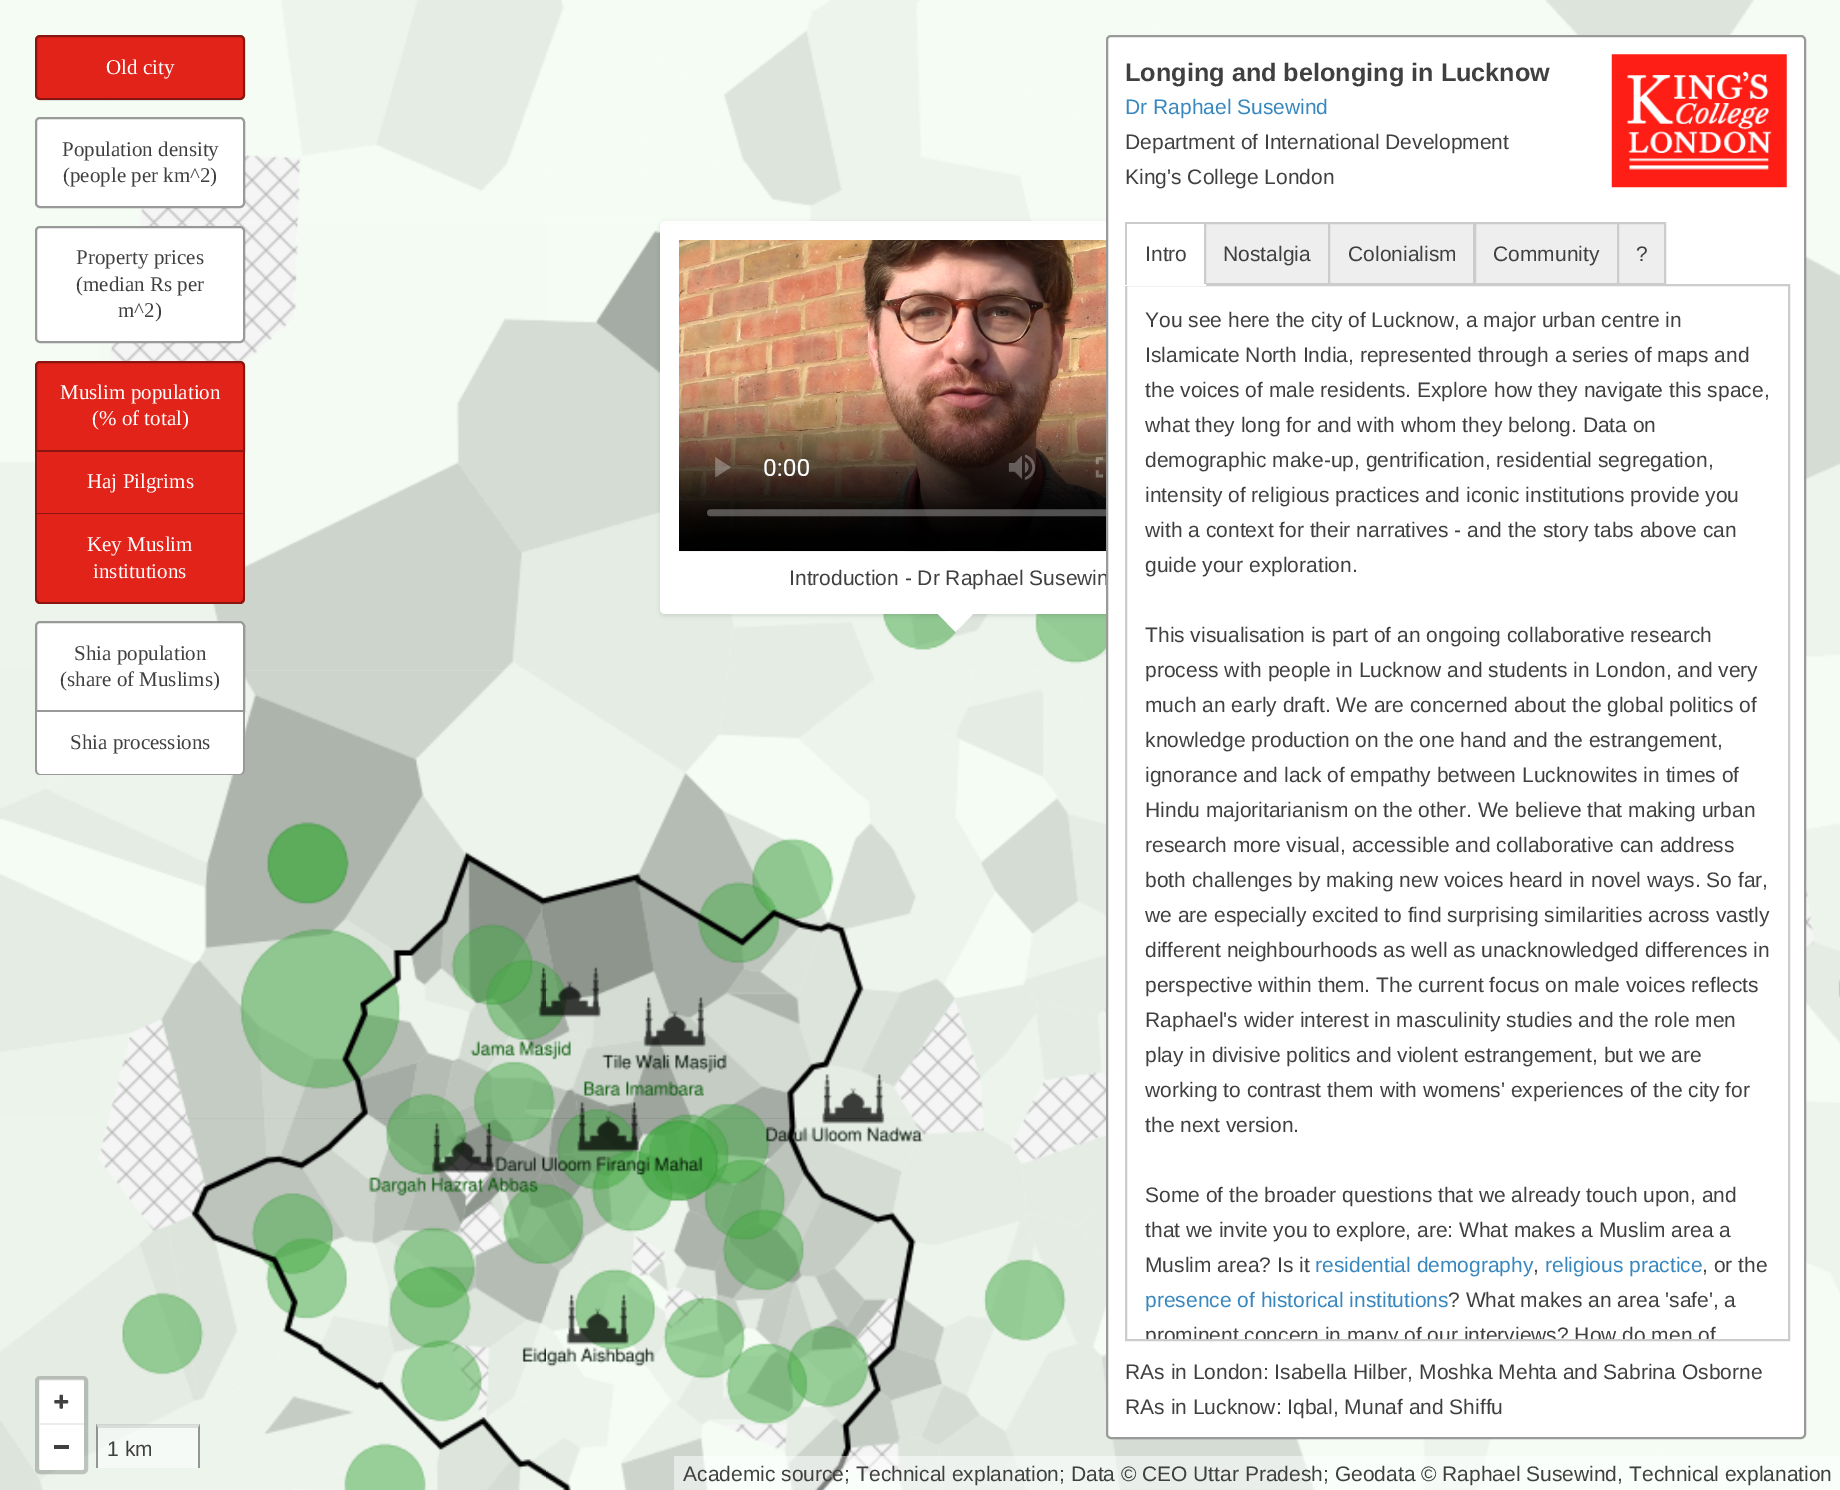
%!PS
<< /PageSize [1840 1490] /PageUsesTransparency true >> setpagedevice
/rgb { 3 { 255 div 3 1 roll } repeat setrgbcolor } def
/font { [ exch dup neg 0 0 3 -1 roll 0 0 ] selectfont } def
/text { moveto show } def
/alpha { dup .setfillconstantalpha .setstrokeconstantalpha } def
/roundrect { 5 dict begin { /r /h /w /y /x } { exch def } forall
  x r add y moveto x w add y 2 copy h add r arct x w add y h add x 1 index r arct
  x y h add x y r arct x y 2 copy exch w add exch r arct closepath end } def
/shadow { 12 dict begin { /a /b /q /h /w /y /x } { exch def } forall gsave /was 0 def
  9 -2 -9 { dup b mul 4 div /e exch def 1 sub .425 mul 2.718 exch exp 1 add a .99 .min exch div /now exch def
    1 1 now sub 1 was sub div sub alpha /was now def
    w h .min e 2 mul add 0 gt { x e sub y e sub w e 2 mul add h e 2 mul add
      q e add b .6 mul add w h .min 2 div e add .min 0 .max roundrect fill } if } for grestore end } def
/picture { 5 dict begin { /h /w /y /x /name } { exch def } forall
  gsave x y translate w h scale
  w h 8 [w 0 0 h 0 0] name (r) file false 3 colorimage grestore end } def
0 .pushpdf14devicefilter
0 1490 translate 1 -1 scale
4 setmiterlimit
255 255 255 rgb
0 0 1840 1490 rectfill
(img_03.rgb) 0 0 98 222 picture
(img_04.rgb) 98 0 448 222 picture
226 35 26 rgb
35 35 210 65 5 roundrect fill
0.4 alpha
0 0 0 rgb
2 setlinewidth
36 36 208 63 4 roundrect stroke
1 alpha
255 255 255 rgb
35 117 210 91 5 roundrect fill
0.4 alpha
0 0 0 rgb
36 118 208 89 4 roundrect stroke
1 alpha
(img_08.rgb) 0 222 98 448 picture
(img_09.rgb) 98 222 448 449 picture
255 255 255 rgb
35 226 210 117 5 roundrect fill
0.4 alpha
0 0 0 rgb
36 227 208 115 4 roundrect stroke
1 alpha
226 35 26 rgb
40 361 moveto 200 0 rlineto 3 0 5 2 5 5 rcurveto 0 86 rlineto -210 0 rlineto 0 -86 rlineto 0 -3 2 -5 5 -5 rcurveto closepath fill
0.4 alpha
0 0 0 rgb
40 362 moveto 200 0 rlineto 2 0 4 2 4 4 rcurveto 0 85 rlineto -208 0 rlineto 0 -85 rlineto 0 -2 2 -4 4 -4 rcurveto closepath stroke
1 alpha
226 35 26 rgb
35 452 210 63 rectfill
136 21 16 rgb
245 452 moveto 0 62 rlineto -2 -1 rlineto 0 -61 rlineto closepath fill
0.4 alpha
0 0 0 rgb
245 514 moveto -210 0 rlineto 2 -1 rlineto 206 0 rlineto closepath fill
35 514 moveto 0 -62 rlineto 2 0 rlineto 0 61 rlineto closepath fill
1 alpha
226 35 26 rgb
35 515 moveto 210 0 rlineto 0 84 rlineto 0 3 -2 5 -5 5 rcurveto -200 0 rlineto -3 0 -5 -2 -5 -5 rcurveto closepath fill
0.4 alpha
0 0 0 rgb
35 514 moveto 210 0 rlineto 0 84 rlineto 0 3 -2 6 -5 6 rcurveto -200 0 rlineto -3 0 -5 -3 -5 -6 rcurveto closepath 37 514 moveto 206 0 rlineto 0 84 rlineto 0 2 -1 4 -3 4 rcurveto -200 0 rlineto -2 0 -3 -2 -3 -4 rcurveto closepath eofill
1 alpha
(img_13.rgb) 0 670 98 448 picture
(img_14.rgb) 98 670 448 449 picture
255 255 255 rgb
40 621 moveto 200 0 rlineto 3 0 5 2 5 5 rcurveto 0 86 rlineto -210 0 rlineto 0 -86 rlineto 0 -3 2 -5 5 -5 rcurveto closepath fill
0.4 alpha
0 0 0 rgb
40 622 moveto 200 0 rlineto 2 0 4 2 4 4 rcurveto 0 85 rlineto -208 0 rlineto 0 -85 rlineto 0 -2 2 -4 4 -4 rcurveto closepath stroke
1 alpha
255 255 255 rgb
35 712 moveto 210 0 rlineto 0 58 rlineto 0 3 -2 5 -5 5 rcurveto -200 0 rlineto -3 0 -5 -2 -5 -5 rcurveto closepath fill
0.4 alpha
0 0 0 rgb
35 712 moveto 210 0 rlineto 0 58 rlineto 0 3 -2 5 -5 5 rcurveto -200 0 rlineto -3 0 -5 -2 -5 -5 rcurveto closepath 37 712 moveto 206 0 rlineto 0 58 rlineto 0 2 -1 4 -3 4 rcurveto -200 0 rlineto -2 0 -3 -2 -3 -4 rcurveto closepath eofill
1 alpha
(img_18.rgb) 0 1118 98 372 picture
255 255 255 rgb
39 1379 45 91 2 roundrect fill
0.2 alpha
0 0 0 rgb
4 setlinewidth
37 1378 49 94 3 roundrect stroke
1 alpha
(img_02.rgb) 54 1394 15 15 picture
236 236 236 rgb
39 1423 45 2 rectfill
64 64 64 rgb
54 1445 15 4 rectfill
(img_19.rgb) 98 1118 448 372 picture
(img_25.rgb) 239 822 307 297 picture
(img_28.rgb) 122 1118 424 372 picture
(img_35.rgb) 470 967 76 89 picture
(img_31.rgb) 341 852 205 267 picture
(img_37.rgb) 369 1123 177 241 picture
(img_33.rgb) 190 1118 356 360 picture
0.5 alpha
255 255 255 rgb
96 1425 104 43 rectfill
0.1 alpha
0 0 0 rgb
96 1424 moveto 104 0 rlineto -2 4 rlineto -100 0 rlineto closepath fill
0.4 alpha
200 1424 moveto 0 44 rlineto -2 0 rlineto 0 -40 rlineto closepath fill
96 1468 moveto 0 -44 rlineto 2 4 rlineto 0 40 rlineto closepath fill
1 alpha
(img_10.rgb) 546 222 448 449 picture
(img_15.rgb) 546 670 448 449 picture
(img_20.rgb) 546 1118 448 372 picture
(img_11.rgb) 994 614 112 57 picture
(img_16.rgb) 994 670 112 449 picture
(img_21.rgb) 994 1118 448 372 picture
(img_22.rgb) 1442 1118 398 372 picture
(img_26.rgb) 546 838 288 281 picture
(img_29.rgb) 546 1118 448 307 picture
(img_36.rgb) 546 967 339 152 picture
(img_38.rgb) 546 1118 377 249 picture
(img_32.rgb) 546 873 318 246 picture
(img_34.rgb) 546 1118 370 372 picture
0.5 alpha
255 255 255 rgb
674 1456 1166 34 rectfill
1 alpha
(img_05.rgb) 546 0 448 222 picture
(img_06.rgb) 994 0 448 221 picture
(img_07.rgb) 1442 0 398 222 picture
(img_12.rgb) 1806 222 34 448 picture
(img_17.rgb) 1806 670 34 448 picture
(img_23.rgb) 882 614 78 36 picture
(img_24.rgb) 1035 614 71 50 picture
(img_27.rgb) 1838 979 2 19 picture
(img_30.rgb) 994 1259 72 82 picture
0 0 0 rgb
660 222 591 394 5 2 0.1 shadow
255 255 255 rgb
660 221 591 393 5 roundrect fill
(img_39.rgb) 679 240 427 312 picture
938 614 moveto 35 0 rlineto -17.5 18 rlineto closepath fill
/LiberationSerif-Regular 21 font
(Old city) 106 74 text
64 64 64 rgb
(Population density) 62 156 text
(\(people per km^2\)) 63 182 text
(Property prices) 76 264 text
(\(median Rs per) 76 291 text
(m^2\)) 118 317 text
255 255 255 rgb
(Muslim population) 60 399 text
(\(% of total\)) 92 425 text
(Haj Pilgrims) 87 488 text
(Key Muslim) 87 551 text
(institutions) 93 578 text
64 64 64 rgb
(Shia population) 74 660 text
(\(share of Muslims\)) 60 686 text
(Shia processions) 70 749 text
/LiberationSans-Regular 21 font
(1 km) 107 1456 text
(Academic source) 683 1481 text
(;) 844 1481 text
(Technical explanation) 856 1481 text
(; Data ©) 1059 1481 text
(CEO Uttar Pradesh) 1142 1481 text
(; Geodata ©) 1323 1481 text
(Raphael Susewind) 1442 1481 text
(,) 1617 1481 text
(Technical explanation) 1629 1481 text
(Introduction - Dr Raphael Susewin) 789 585 text
255 255 255 rgb
1106 35 700 1404 5 roundrect fill
0.4 alpha
0 0 0 rgb
2 setlinewidth
1107 36 698 1402 4 roundrect stroke
1 alpha
64 64 64 rgb
(Intro) 1145 261 text
238 238 238 rgb
1205 223 moveto 124 0 rlineto 0 61 rlineto -124 0 rlineto closepath gsave fill grestore
204 204 204 rgb
stroke
238 238 238 rgb
1329 223 moveto 145 0 rlineto 0 61 rlineto -145 0 rlineto closepath gsave fill grestore
204 204 204 rgb
stroke
238 238 238 rgb
1475 223 moveto 143 0 rlineto 0 61 rlineto -143 0 rlineto closepath gsave fill grestore
204 204 204 rgb
stroke
238 238 238 rgb
1618 223 moveto 47 0 rlineto 0 61 rlineto -47 0 rlineto closepath gsave fill grestore
204 204 204 rgb
stroke
1126 285 663 1055 rectstroke
255 255 255 rgb
1125 284 81 2 rectfill
204 204 204 rgb
1125 222 81 2 rectfill
1125 222 2 63 rectfill
gsave
1127 285 662 1054 rectclip
64 64 64 rgb
(prominent concern in many of our interviews? How do men of) 1145 1342 text
grestore
64 64 64 rgb
(? What makes an area 'safe', a) 1448 1307 text
56 135 190 rgb
(presence of historical institutions) 1145 1307 text
64 64 64 rgb
(, or the) 1702 1272 text
56 135 190 rgb
(religious practice) 1545 1272 text
64 64 64 rgb
(,) 1533 1272 text
56 135 190 rgb
(residential demography) 1315 1272 text
64 64 64 rgb
(Muslim area? Is it) 1145 1272 text
(that we invite you to explore, are: What makes a Muslim area a) 1145 1237 text
(Some of the broader questions that we already touch upon, and) 1145 1202 text
(the next version.) 1145 1132 text
(working to contrast them with womens' experiences of the city for) 1145 1097 text
(play in divisive politics and violent estrangement, but we are) 1145 1062 text
(Raphael's wider interest in masculinity studies and the role men) 1145 1027 text
(perspective within them. The current focus on male voices reflects) 1145 992 text
(different neighbourhoods as well as unacknowledged differences in) 1145 957 text
(we are especially excited to find surprising similarities across vastly) 1145 922 text
(both challenges by making new voices heard in novel ways. So far,) 1145 887 text
(research more visual, accessible and collaborative can address) 1145 852 text
(Hindu majoritarianism on the other. We believe that making urban) 1145 817 text
(ignorance and lack of empathy between Lucknowites in times of) 1145 782 text
(knowledge production on the one hand and the estrangement,) 1145 747 text
(much an early draft. We are concerned about the global politics of) 1145 712 text
(process with people in Lucknow and students in London, and very) 1145 677 text
(This visualisation is part of an ongoing collaborative research) 1145 642 text
(guide your exploration.) 1145 572 text
(with a context for their narratives - and the story tabs above can) 1145 537 text
(intensity of religious practices and iconic institutions provide you) 1145 502 text
(demographic make-up, gentrification, residential segregation,) 1145 467 text
(what they long for and with whom they belong. Data on) 1145 432 text
(the voices of male residents. Explore how they navigate this space,) 1145 397 text
(Islamicate North India, represented through a series of maps and) 1145 362 text
(You see here the city of Lucknow, a major urban centre in) 1145 327 text
(?) 1636 261 text
(Community) 1493 261 text
(Colonialism) 1348 261 text
(Nostalgia) 1223 261 text
(RAs in Lucknow: Iqbal, Munaf and Shiffu) 1125 1414 text
(RAs in London: Isabella Hilber, Moshka Mehta and Sabrina Osborne) 1125 1379 text
(King's College London) 1125 184 text
(Department of International Development) 1125 149 text
56 135 190 rgb
(Dr Raphael Susewind) 1125 114 text
/LiberationSans-Bold 25.25 font
64 64 64 rgb
(Longing and belonging in Lucknow) 1125 81 text
(img_01.rgb) 1611 54 176 134 picture
.poppdf14devicefilter showpage
